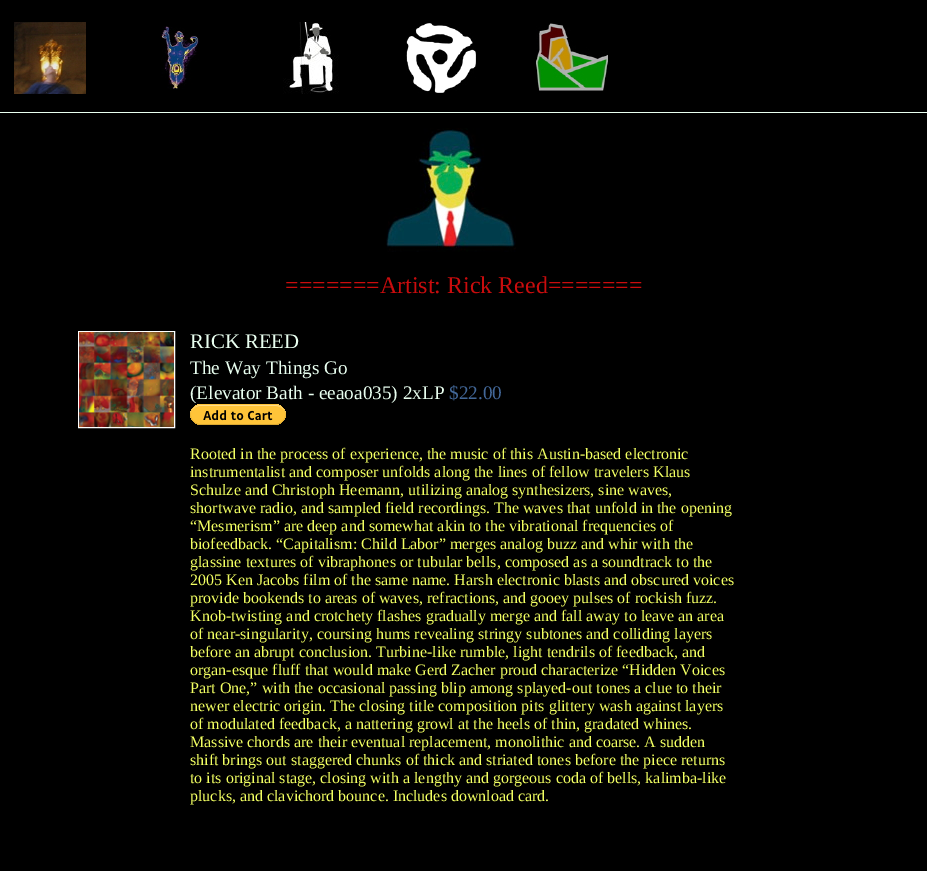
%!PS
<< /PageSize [927 871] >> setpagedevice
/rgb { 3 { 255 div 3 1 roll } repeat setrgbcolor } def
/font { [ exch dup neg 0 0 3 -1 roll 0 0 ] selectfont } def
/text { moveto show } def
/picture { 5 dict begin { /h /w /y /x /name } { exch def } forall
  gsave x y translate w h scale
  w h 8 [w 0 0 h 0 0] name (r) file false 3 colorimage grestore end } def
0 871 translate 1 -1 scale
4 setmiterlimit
0 0 0 rgb
0 0 927 871 rectfill
233 255 240 rgb
0 112 927 1 rectfill
(img_01.rgb) 14 22 72 72 picture
(img_02.rgb) 160 26 40 63 picture
(img_03.rgb) 283 22 56 72 picture
(img_04.rgb) 406 23 70 70 picture
(img_05.rgb) 536 23 72 68 picture
(img_06.rgb) 386 128 130 124 picture
255 255 255 rgb
78.5 331.5 96 96 rectstroke
(img_07.rgb) 79 332 95 95 picture
(img_08.rgb) 190 404 96 21 picture
/LiberationSerif-Regular 24 font
201 12 13 rgb
(=======Artist: Rick Reed=======) 285 293 text
/LiberationSerif-Regular 20.75 font
233 255 240 rgb
(RICK REED) 190 348 text
/LiberationSerif-Regular 19.25 font
(The Way Things Go) 190 374 text
(\(Elevator Bath - eeaoa035\) 2xLP) 190 399 text
66 103 152 rgb
($22.00) 449 399 text
/LiberationSerif-Regular 16 font
242 255 98 rgb
(Rooted in the process of experience, the music of this Austin-based electronic) 190 459 text
(instrumentalist and composer unfolds along the lines of fellow travelers Klaus) 190 477 text
(Schulze and Christoph Heemann, utilizing analog synthesizers, sine waves,) 190 495 text
(shortwave radio, and sampled field recordings. The waves that unfold in the opening) 190 513 text
(“Mesmerism” are deep and somewhat akin to the vibrational frequencies of) 190 531 text
(biofeedback. “Capitalism: Child Labor” merges analog buzz and whir with the) 190 549 text
(glassine textures of vibraphones or tubular bells, composed as a soundtrack to the) 190 567 text
(2005 Ken Jacobs film of the same name. Harsh electronic blasts and obscured voices) 190 585 text
(provide bookends to areas of waves, refractions, and gooey pulses of rockish fuzz.) 190 603 text
(Knob-twisting and crotchety flashes gradually merge and fall away to leave an area) 190 621 text
(of near-singularity, coursing hums revealing stringy subtones and colliding layers) 190 639 text
(before an abrupt conclusion. Turbine-like rumble, light tendrils of feedback, and) 190 657 text
(organ-esque fluff that would make Gerd Zacher proud characterize “Hidden Voices) 190 675 text
(Part One,” with the occasional passing blip among splayed-out tones a clue to their) 190 693 text
(newer electric origin. The closing title composition pits glittery wash against layers) 190 711 text
(of modulated feedback, a nattering growl at the heels of thin, gradated whines.) 190 729 text
(Massive chords are their eventual replacement, monolithic and coarse. A sudden) 190 747 text
(shift brings out staggered chunks of thick and striated tones before the piece returns) 190 765 text
(to its original stage, closing with a lengthy and gorgeous coda of bells, kalimba-like) 190 783 text
(plucks, and clavichord bounce. Includes download card.) 190 801 text
showpage
